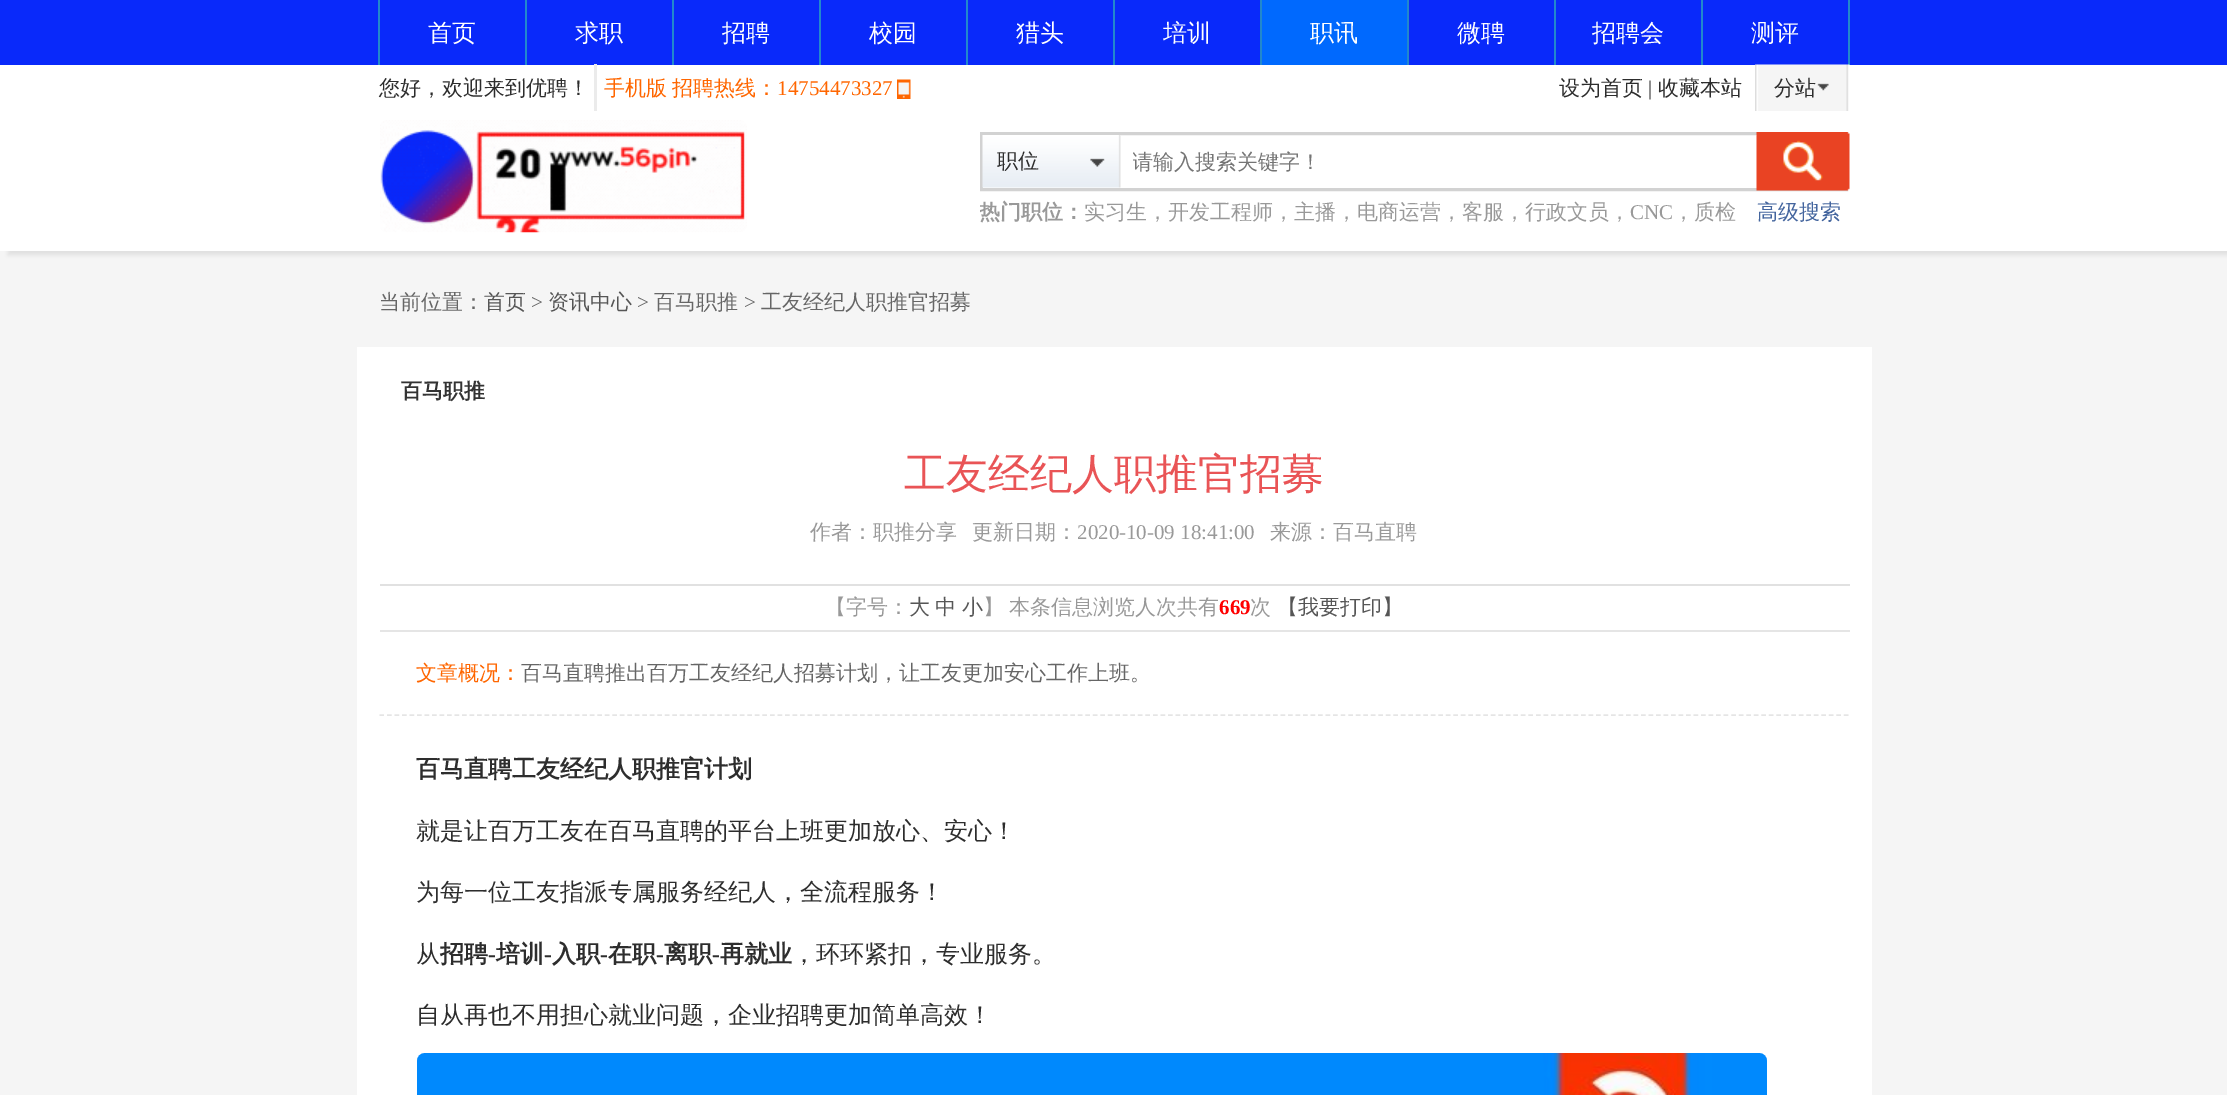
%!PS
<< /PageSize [2227 1095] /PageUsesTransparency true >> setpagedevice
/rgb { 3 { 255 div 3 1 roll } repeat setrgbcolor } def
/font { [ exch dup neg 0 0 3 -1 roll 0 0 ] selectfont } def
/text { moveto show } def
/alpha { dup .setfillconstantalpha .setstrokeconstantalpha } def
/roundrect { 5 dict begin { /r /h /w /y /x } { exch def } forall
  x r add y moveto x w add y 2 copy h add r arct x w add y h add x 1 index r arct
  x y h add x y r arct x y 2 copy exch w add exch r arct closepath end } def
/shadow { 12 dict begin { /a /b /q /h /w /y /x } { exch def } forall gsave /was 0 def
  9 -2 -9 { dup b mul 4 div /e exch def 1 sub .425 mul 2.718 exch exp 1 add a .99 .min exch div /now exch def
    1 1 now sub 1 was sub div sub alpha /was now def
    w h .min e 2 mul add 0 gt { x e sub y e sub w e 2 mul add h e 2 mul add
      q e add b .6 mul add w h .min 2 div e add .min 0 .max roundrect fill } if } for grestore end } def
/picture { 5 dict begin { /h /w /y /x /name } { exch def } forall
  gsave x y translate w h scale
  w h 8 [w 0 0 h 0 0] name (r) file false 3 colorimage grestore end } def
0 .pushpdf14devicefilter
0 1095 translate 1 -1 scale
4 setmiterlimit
245 245 245 rgb
0 0 2227 1095 rectfill
224 224 224 rgb
8 5 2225 250 0 2 1 shadow
255 255 255 rgb
0 65 2227 186 rectfill
9 41 250 rgb
0 0 2227 65 rectfill
34 136 204 rgb
525 0 2 65 rectfill
378 0 2 65 rectfill
672 0 2 65 rectfill
819 0 2 65 rectfill
966 0 2 65 rectfill
1113 0 2 65 rectfill
0 105 254 rgb
1262 0 145 65 rectfill
34 136 204 rgb
1407 0 2 65 rectfill
1260 0 2 65 rectfill
1554 0 2 65 rectfill
1701 0 2 65 rectfill
1848 0 2 65 rectfill
235 235 235 rgb
594 64 3 47 rectfill
(img_01.rgb) 897 79 14 20 picture
(img_02.rgb) 1755 64 95 47 picture
(img_03.rgb) 380 120 367 113 picture
210 210 210 rgb
3 setlinewidth
981.5 133.5 865 56 rectstroke
(img_04.rgb) 982 135 139 53 picture
(img_05.rgb) 1756 132 94 59 picture
255 255 255 rgb
357 347 1515 748 rectfill
225 225 225 rgb
380 584 1470 2 rectfill
229 229 229 rgb
380 630 1470 2 rectfill
1.5 setlinewidth
[4.5 3.01] 0 setdash
379.5 715 moveto 1470 0 rlineto stroke
(img_06.rgb) 417 1053 1350 42 picture
/WenQuanYiZenHei-Medium 24 font
255 255 255 rgb
(首页) 428 41 text
(求职) 575 41 text
(招聘) 722 41 text
(校园) 869 41 text
(猎头) 1016 41 text
(培训) 1163 41 text
(职讯) 1310 41 text
(微聘) 1457 41 text
(招聘会) 1592 41 text
(测评) 1751 41 text
/WenQuanYiZenHei-Medium 21 font
45 45 45 rgb
(您好，欢迎来到优聘！) 379 95 text
255 102 0 rgb
(手机版) 604 95 text
(招聘热线：) 672 95 text
/LiberationSerif-Regular 21 font
(14754473327) 777 95 text
/WenQuanYiZenHei-Medium 21 font
45 45 45 rgb
(设为首页) 1559 95 text
/LiberationSerif-Regular 21 font
(|) 1648 95 text
/WenQuanYiZenHei-Medium 21 font
(收藏本站) 1658 95 text
(分站) 1774 95 text
(职位) 997 168 text
gsave
1133 150 615 27 rectclip
117 117 117 rgb
(请输入搜索关键字！) 1132 169 text
grestore
gsave
980 191 870 45 rectclip
/WenQuanYiZenHei-Bold 21 font
153 153 153 rgb
(热门职位：) 979 219 text
grestore
153 153 153 rgb
(实习生，开发工程师，主播，电商运营，客服，行政文员，) 1084 219 text
/LiberationSerif-Regular 21 font
(CNC) 1630 219 text
/WenQuanYiZenHei-Medium 21 font
(，质检) 1673 219 text
68 101 158 rgb
(高级搜索) 1757 219 text
102 102 102 rgb
(当前位置：) 379 309 text
86 86 86 rgb
(首页) 484 309 text
/LiberationSerif-Regular 21 font
102 102 102 rgb
(>) 531 309 text
/WenQuanYiZenHei-Medium 21 font
86 86 86 rgb
(资讯中心) 548 309 text
/LiberationSerif-Regular 21 font
102 102 102 rgb
(>) 637 309 text
/WenQuanYiZenHei-Medium 21 font
(百马职推) 654 309 text
/LiberationSerif-Regular 21 font
(>) 744 309 text
/WenQuanYiZenHei-Medium 21 font
(工友经纪人职推官招募) 761 309 text
/WenQuanYiZenHei-Bold 21 font
51 51 51 rgb
(百马职推) 401 398 text
/WenQuanYiZenHei-Medium 42 font
233 84 86 rgb
(工友经纪人职推官招募) 904 488 text
/WenQuanYiZenHei-Medium 21 font
153 153 153 rgb
(作者：职推分享) 810 539 text
(更新日期：) 972 539 text
/LiberationSerif-Regular 21 font
(2020-10-09 18:41:00) 1077 539 text
/WenQuanYiZenHei-Medium 21 font
(来源：百马直聘) 1270 539 text
(【字号：) 825 614 text
86 86 86 rgb
(大) 909 614 text
(中) 935 614 text
(小) 962 614 text
153 153 153 rgb
983 614 moveto -1 0 32 (】 本条信息浏览人次共有) widthshow
/LiberationSerif-Bold 21 font
255 0 0 rgb
(669) 1219 614 text
/WenQuanYiZenHei-Medium 21 font
153 153 153 rgb
(次) 1250 614 text
86 86 86 rgb
(【我要打印】) 1277 614 text
255 102 0 rgb
(文章概况：) 416 680 text
102 102 102 rgb
(百马直聘推出百万工友经纪人招募计划，让工友更加安心工作上班。) 521 680 text
/WenQuanYiZenHei-Bold 24 font
45 45 45 rgb
(百马直聘工友经纪人职推官计划) 416 777 text
/WenQuanYiZenHei-Medium 24 font
(就是让百万工友在百马直聘的平台上班更加放心、安心！) 416 839 text
(为每一位工友指派专属服务经纪人，全流程服务！) 416 900 text
(从) 416 962 text
/WenQuanYiZenHei-Bold 24 font
(招聘) 440 962 text
/LiberationSerif-Bold 24 font
(-) 488 962 text
/WenQuanYiZenHei-Bold 24 font
(培训) 496 962 text
/LiberationSerif-Bold 24 font
(-) 544 962 text
/WenQuanYiZenHei-Bold 24 font
(入职) 552 962 text
/LiberationSerif-Bold 24 font
(-) 600 962 text
/WenQuanYiZenHei-Bold 24 font
(在职) 608 962 text
/LiberationSerif-Bold 24 font
(-) 656 962 text
/WenQuanYiZenHei-Bold 24 font
(离职) 664 962 text
/LiberationSerif-Bold 24 font
(-) 712 962 text
/WenQuanYiZenHei-Bold 24 font
(再就业) 720 962 text
/WenQuanYiZenHei-Medium 24 font
(，环环紧扣，专业服务。) 792 962 text
(自从再也不用担心就业问题，企业招聘更加简单高效！) 416 1023 text
.poppdf14devicefilter showpage
